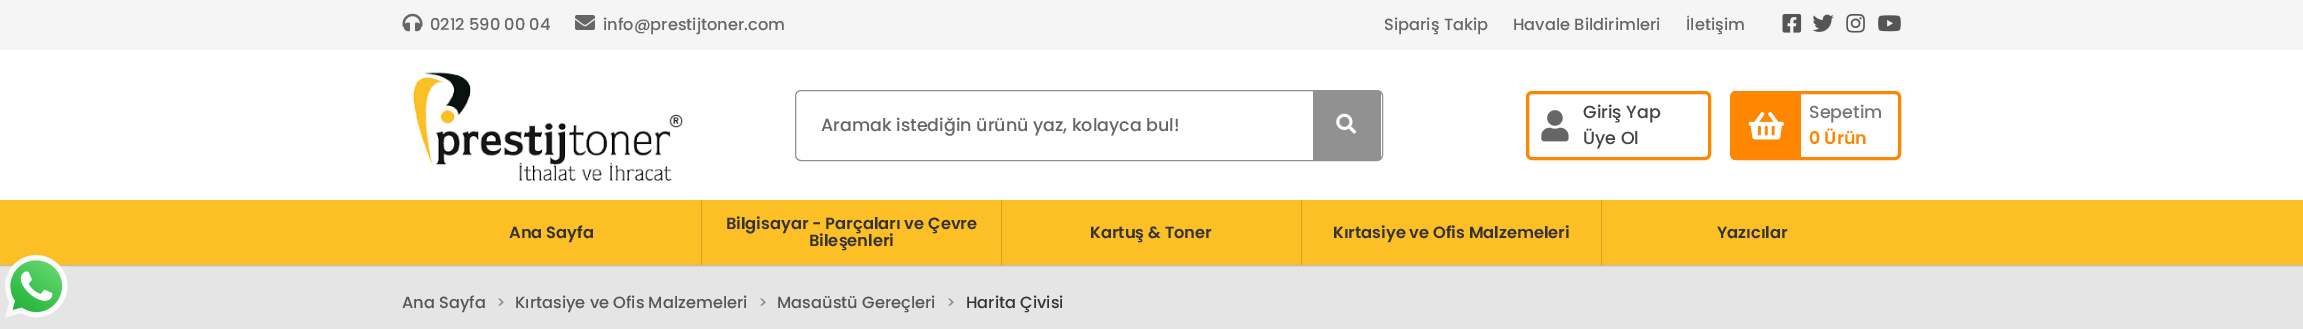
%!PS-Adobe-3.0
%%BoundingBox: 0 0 2303 329
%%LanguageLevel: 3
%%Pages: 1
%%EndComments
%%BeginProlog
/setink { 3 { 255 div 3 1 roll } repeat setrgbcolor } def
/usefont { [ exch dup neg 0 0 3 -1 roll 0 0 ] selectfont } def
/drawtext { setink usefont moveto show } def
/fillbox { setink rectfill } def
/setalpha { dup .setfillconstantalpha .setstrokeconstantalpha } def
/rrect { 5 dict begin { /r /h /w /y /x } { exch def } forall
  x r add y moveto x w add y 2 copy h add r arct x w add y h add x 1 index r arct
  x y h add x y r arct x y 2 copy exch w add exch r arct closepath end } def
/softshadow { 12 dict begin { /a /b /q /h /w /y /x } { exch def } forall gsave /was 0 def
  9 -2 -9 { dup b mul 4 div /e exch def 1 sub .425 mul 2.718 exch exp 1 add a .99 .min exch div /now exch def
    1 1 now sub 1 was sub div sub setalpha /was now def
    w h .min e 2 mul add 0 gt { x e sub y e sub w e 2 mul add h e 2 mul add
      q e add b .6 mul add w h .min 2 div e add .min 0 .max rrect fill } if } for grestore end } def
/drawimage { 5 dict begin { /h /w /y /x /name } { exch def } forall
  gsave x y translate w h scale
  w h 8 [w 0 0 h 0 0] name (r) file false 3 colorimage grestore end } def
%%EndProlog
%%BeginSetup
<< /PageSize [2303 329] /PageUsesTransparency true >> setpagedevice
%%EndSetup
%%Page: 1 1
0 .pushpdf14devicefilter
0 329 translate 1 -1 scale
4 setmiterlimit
0 0 2303 329 229 229 229 fillbox
0 50 2303 150 255 255 255 fillbox
0 0 2303 50 245 245 245 fillbox
(assets/img1.rgb) 402 13 21 19 drawimage
(0212 590 00 04) 430 30 /Poppins-Medium 16.25 102 102 102 drawtext
(assets/img2.rgb) 575 15 20 15 drawimage
(info@prestijtoner.com) 603 30 /Poppins-Medium 16.25 102 102 102 drawtext
(Sipariş Takip) 1384 30 /Poppins-Medium 16.25 102 102 102 drawtext
(Havale Bildirimleri) 1513 30 /Poppins-Medium 16.25 102 102 102 drawtext
(İletişim) 1686 30 /Poppins-Medium 16.25 102 102 102 drawtext
(assets/img3.rgb) 1782 14 20 19 drawimage
(assets/img4.rgb) 1812 14 22 18 drawimage
(assets/img5.rgb) 1846 14 19 19 drawimage
(assets/img6.rgb) 1878 15 23 17 drawimage
(assets/img7.rgb) 413 72 270 109 drawimage
145 145 145 setink
795.5 90.5 587 70 5.5 rrect stroke
(Aramak istediğin ürünü yaz, kolayca bul!) 821 131 /Poppins-Medium 17.5 102 102 102 drawtext
1313 91 68 69 145 145 145 fillbox
(assets/img8.rgb) 1336 113 21 21 drawimage
255 134 0 setink
3 setlinewidth
1527.5 92.5 182 66 4.5 rrect stroke
(assets/img9.rgb) 1541 110 28 32 drawimage
(Giriş Yap) 1583 118 /Poppins-Medium 17.5 68 68 68 drawtext
(Üye Ol) 1583 144 /Poppins-Medium 17.5 68 68 68 drawtext
255 134 0 setink
1731.5 92.5 168 66 4.5 rrect stroke
1733 91 68 69 255 134 0 fillbox
(assets/img10.rgb) 1748 112 36 28 drawimage
(Sepetim) 1809 118 /Poppins-Medium 17.5 119 119 119 drawtext
(0 Ürün) 1809 144 /Poppins-SemiBold 17.5 255 134 0 drawtext
0 0 0 setink
0 201 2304 65 0 0.5 0.2 softshadow
0 200 2303 65 252 191 38 fillbox
701 200 1 65 214 162 32 fillbox
(Ana Sayfa) 509 238 /Poppins-SemiBold 16.25 51 51 51 drawtext
1001 200 1 65 214 162 32 fillbox
(Bilgisayar - Parçaları ve Çevre) 726 229 /Poppins-SemiBold 16.25 51 51 51 drawtext
(Bileşenleri) 809 246 /Poppins-SemiBold 16.25 51 51 51 drawtext
1301 200 1 65 214 162 32 fillbox
(Kartuş & Toner) 1090 238 /Poppins-SemiBold 16.25 51 51 51 drawtext
1601 200 1 65 214 162 32 fillbox
(Kırtasiye ve Ofis Malzemeleri) 1333 238 /Poppins-SemiBold 16.25 51 51 51 drawtext
(Yazıcılar) 1717 238 /Poppins-SemiBold 16.25 51 51 51 drawtext
(assets/img11.rgb) 5 255 63 63 drawimage
(Ana Sayfa) 402 308 /Poppins-Medium 16.25 85 85 85 drawtext
(>) 496 308 /Poppins-Medium 16.25 142 142 142 drawtext
(Kırtasiye ve Ofis Malzemeleri) 515 308 /Poppins-Medium 16.25 85 85 85 drawtext
(>) 758 308 /Poppins-Medium 16.25 142 142 142 drawtext
(Masaüstü Gereçleri) 777 308 /Poppins-Medium 16.25 85 85 85 drawtext
(>) 946 308 /Poppins-Medium 16.25 142 142 142 drawtext
(Harita Çivisi) 966 308 /Poppins-Medium 16.25 51 51 51 drawtext
.poppdf14devicefilter showpage
%%EOF
